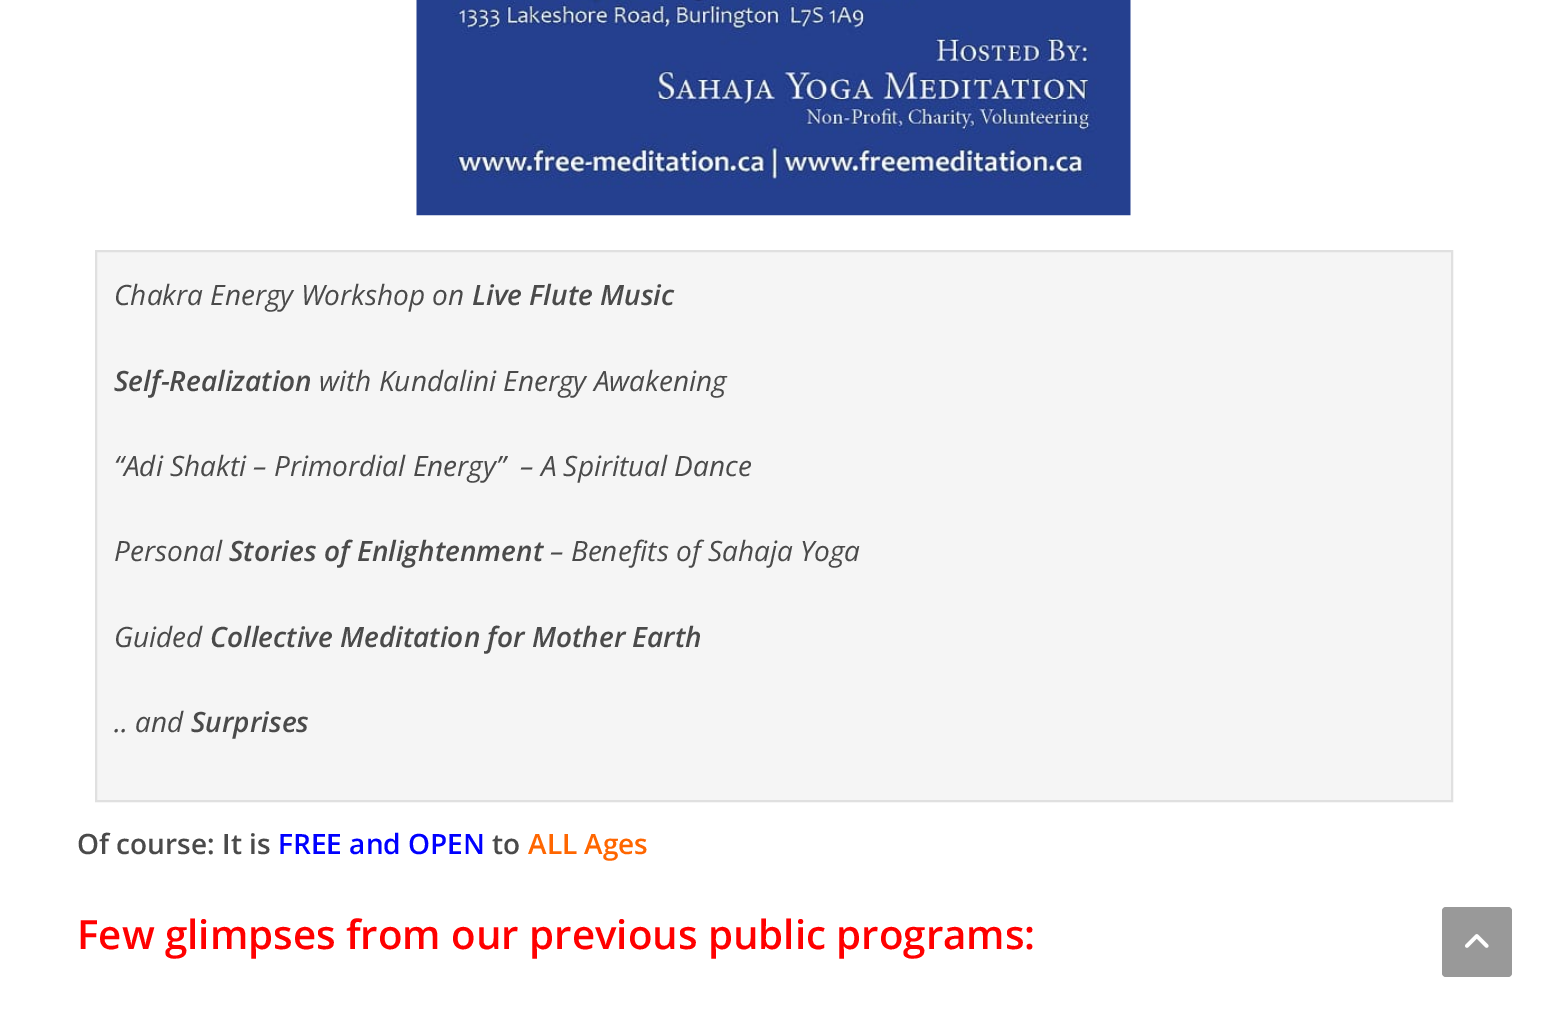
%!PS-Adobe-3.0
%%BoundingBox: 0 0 1546 1011
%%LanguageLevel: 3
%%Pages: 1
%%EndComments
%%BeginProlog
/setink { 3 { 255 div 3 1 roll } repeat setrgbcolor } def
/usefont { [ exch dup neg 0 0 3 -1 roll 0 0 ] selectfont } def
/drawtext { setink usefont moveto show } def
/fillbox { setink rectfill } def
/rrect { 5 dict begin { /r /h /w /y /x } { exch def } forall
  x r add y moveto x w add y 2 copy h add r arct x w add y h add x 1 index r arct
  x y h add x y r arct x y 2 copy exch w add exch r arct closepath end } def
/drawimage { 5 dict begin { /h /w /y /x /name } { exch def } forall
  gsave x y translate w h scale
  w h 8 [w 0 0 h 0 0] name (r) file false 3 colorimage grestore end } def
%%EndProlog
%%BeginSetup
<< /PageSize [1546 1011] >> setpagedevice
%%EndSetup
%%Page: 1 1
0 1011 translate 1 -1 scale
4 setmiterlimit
0 0 1546 1011 255 255 255 fillbox
(assets/img1.rgb) 416 0 715 216 drawimage
245 245 245 setink
96 251 moveto 1452 251 lineto 1452 801 lineto 96 801 lineto closepath gsave fill grestore
224 224 224 setink
2 setlinewidth
stroke
(Chakra Energy Workshop on) 114 305 /OpenSans-Italic 28 74 74 74 drawtext
(Live Flute Music) 472 305 /OpenSans-SemiBoldItalic 28 74 74 74 drawtext
(Self-Realization) 114 391 /OpenSans-SemiBoldItalic 28 74 74 74 drawtext
(with Kundalini Energy Awakening) 319 391 /OpenSans-Italic 28 74 74 74 drawtext
(“Adi Shakti – Primordial Energy”  – A Spiritual Dance) 114 476 /OpenSans-Italic 28 74 74 74 drawtext
(Personal) 114 561 /OpenSans-Italic 28 74 74 74 drawtext
(Stories of Enlightenment) 229 561 /OpenSans-SemiBoldItalic 28 74 74 74 drawtext
(– Benefits of Sahaja Yoga) 550 561 /OpenSans-Italic 28 74 74 74 drawtext
(Guided) 114 647 /OpenSans-Italic 28 74 74 74 drawtext
(Collective Meditation for Mother Earth) 210 647 /OpenSans-SemiBoldItalic 28 74 74 74 drawtext
(.. and) 114 732 /OpenSans-Italic 28 74 74 74 drawtext
(Surprises) 191 732 /OpenSans-SemiBoldItalic 28 74 74 74 drawtext
(Of course: It is) 77 854 /OpenSans-SemiBold 28 74 74 74 drawtext
(FREE and OPEN) 278 854 /OpenSans-SemiBold 28 0 0 255 drawtext
(to) 492 854 /OpenSans-SemiBold 28 74 74 74 drawtext
(ALL Ages) 528 854 /OpenSans-SemiBold 28 255 102 0 drawtext
(Few glimpses from our previous public programs:) 77 949 /OpenSans-SemiBold 40.25 255 0 0 drawtext
153 153 153 setink
1442 907 70 70 4 rrect fill
(assets/img2.rgb) 1465 934 24 14 drawimage
showpage
%%EOF
